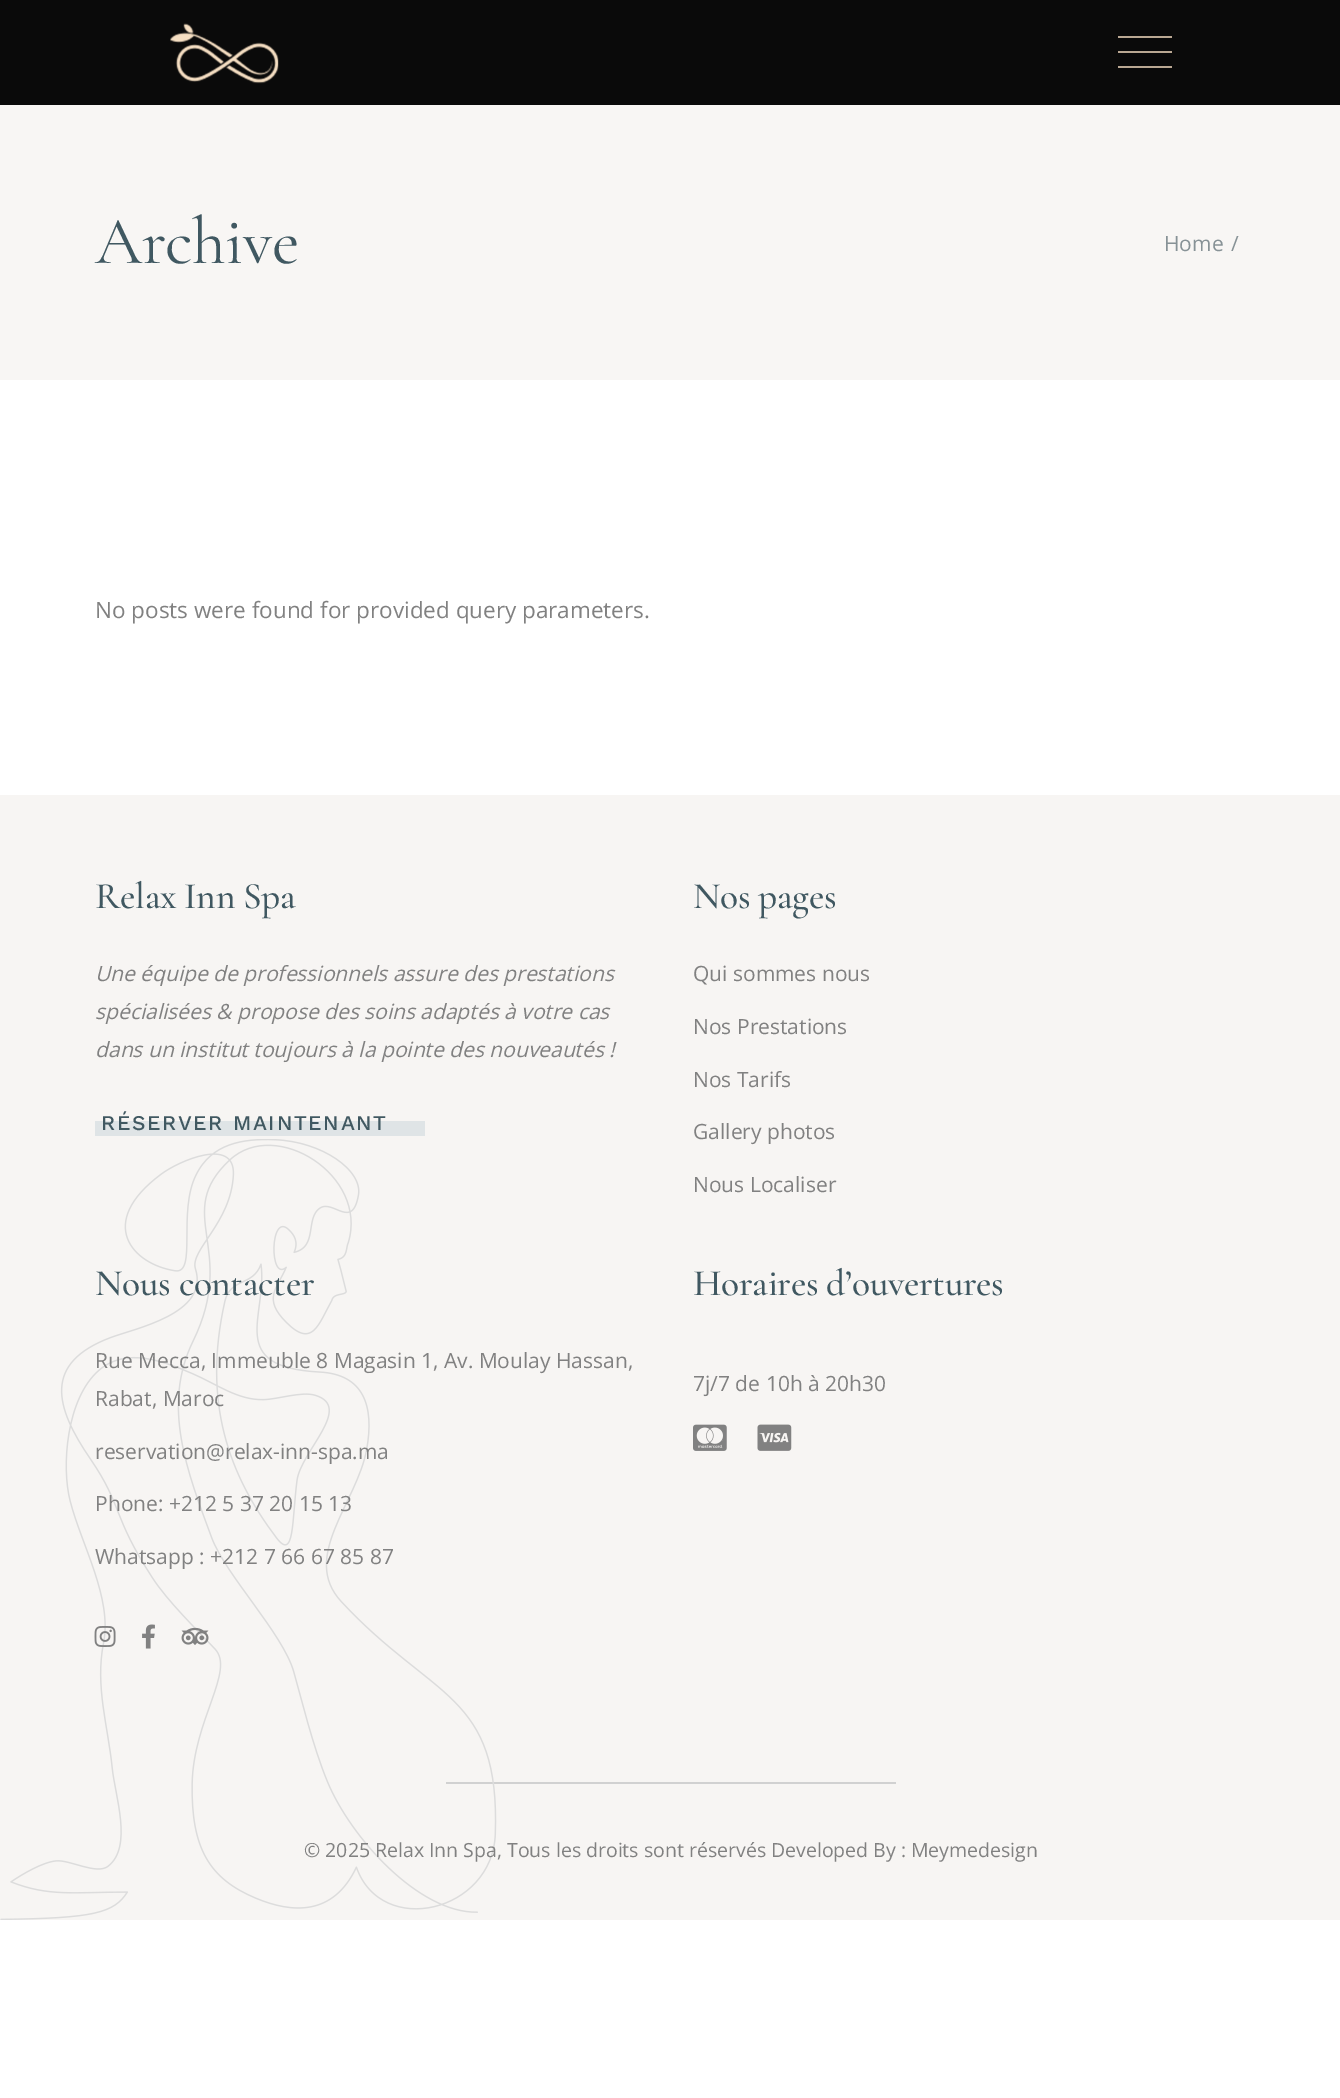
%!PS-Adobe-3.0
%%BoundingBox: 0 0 1340 2098
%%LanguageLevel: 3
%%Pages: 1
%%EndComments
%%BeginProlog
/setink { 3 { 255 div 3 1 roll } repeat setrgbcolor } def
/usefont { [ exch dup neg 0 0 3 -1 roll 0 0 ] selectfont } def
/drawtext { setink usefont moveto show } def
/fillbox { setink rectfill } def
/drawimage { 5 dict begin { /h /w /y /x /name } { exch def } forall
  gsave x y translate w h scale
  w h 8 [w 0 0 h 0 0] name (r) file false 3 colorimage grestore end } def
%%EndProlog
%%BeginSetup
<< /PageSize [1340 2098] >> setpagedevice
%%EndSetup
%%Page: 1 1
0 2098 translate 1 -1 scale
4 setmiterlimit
0 0 1340 2098 255 255 255 fillbox
0 0 1340 105 10 10 10 fillbox
(assets/img1.rgb) 170 23 109 61 drawimage
1118 36 54 2 186 168 147 fillbox
1118 51 54 2 186 168 147 fillbox
1118 66 54 2 186 168 147 fillbox
0 105 1340 275 248 246 244 fillbox
/CormorantGaramond-Regular 67.5 usefont
64 88 97 setink
95 263 moveto -0.75 0 (Archive) ashow
(Home) 1164 251 /OpenSans-Regular 21 135 146 150 drawtext
(/) 1231 251 /OpenSans-Regular 21 135 146 150 drawtext
(No posts were found for provided query parameters.) 95 618 /OpenSans-Regular 22.5 129 129 129 drawtext
0 795 1340 1125 247 245 243 fillbox
/CormorantGaramond-Medium 37.5 usefont
64 88 97 setink
95 908 moveto -0.4 0 (Relax Inn Spa) ashow
(Une équipe de professionnels assure des prestations) 95 981 /OpenSans-Italic 21 129 129 129 drawtext
(spécialisées & propose des soins adaptés à votre cas) 95 1019 /OpenSans-Italic 21 129 129 129 drawtext
(dans un institut toujours à la pointe des nouveautés !) 95 1057 /OpenSans-Italic 21 129 129 129 drawtext
95 1121 330 15 223 228 230 fillbox
/WorkSans-Medium 21 usefont
64 88 97 setink
101 1130 moveto 1.7 0 (RÉSERVER MAINTENANT) ashow
/CormorantGaramond-Medium 37.5 usefont
693 908 moveto -0.4 0 (Nos pages) ashow
(Qui sommes nous) 693 981 /OpenSans-Regular 21 129 129 129 drawtext
(Nos Prestations) 693 1034 /OpenSans-Regular 21 129 129 129 drawtext
(Nos Tarifs) 693 1087 /OpenSans-Regular 21 129 129 129 drawtext
(Gallery photos) 693 1139 /OpenSans-Regular 21 129 129 129 drawtext
(Nous Localiser) 693 1192 /OpenSans-Regular 21 129 129 129 drawtext
446 1782 450 2 209 209 209 fillbox
(assets/img7.rgb) 0 1139 497 781 drawimage
/CormorantGaramond-Medium 37.5 usefont
64 88 97 setink
95 1295 moveto -0.4 0 (Nous contacter) ashow
(Rue Mecca, Immeuble 8 Magasin 1, Av. Moulay Hassan,) 95 1368 /OpenSans-Regular 21 129 129 129 drawtext
(Rabat, Maroc) 95 1406 /OpenSans-Regular 21 129 129 129 drawtext
(reservation@relax-inn-spa.ma) 95 1459 /OpenSans-Regular 21 129 129 129 drawtext
(Phone: +212 5 37 20 15 13) 95 1511 /OpenSans-Regular 21 129 129 129 drawtext
(Whatsapp : +212 7 66 67 85 87) 95 1564 /OpenSans-Regular 21 129 129 129 drawtext
(assets/img2.rgb) 94 1626 22 21 drawimage
(assets/img3.rgb) 142 1624 13 25 drawimage
(assets/img4.rgb) 181 1627 28 18 drawimage
/CormorantGaramond-Medium 37.5 usefont
64 88 97 setink
693 1295 moveto -0.4 0 (Horaires d’ouvertures) ashow
(7j/7 de 10h à 20h30) 693 1391 /OpenSans-Regular 21 129 129 129 drawtext
(assets/img5.rgb) 693 1424 34 27 drawimage
(assets/img6.rgb) 757 1424 35 27 drawimage
(© 2025 Relax Inn Spa, Tous les droits sont réservés Developed By : Meymedesign) 304 1857 /OpenSans-Regular 19.5 129 129 129 drawtext
showpage
%%EOF
